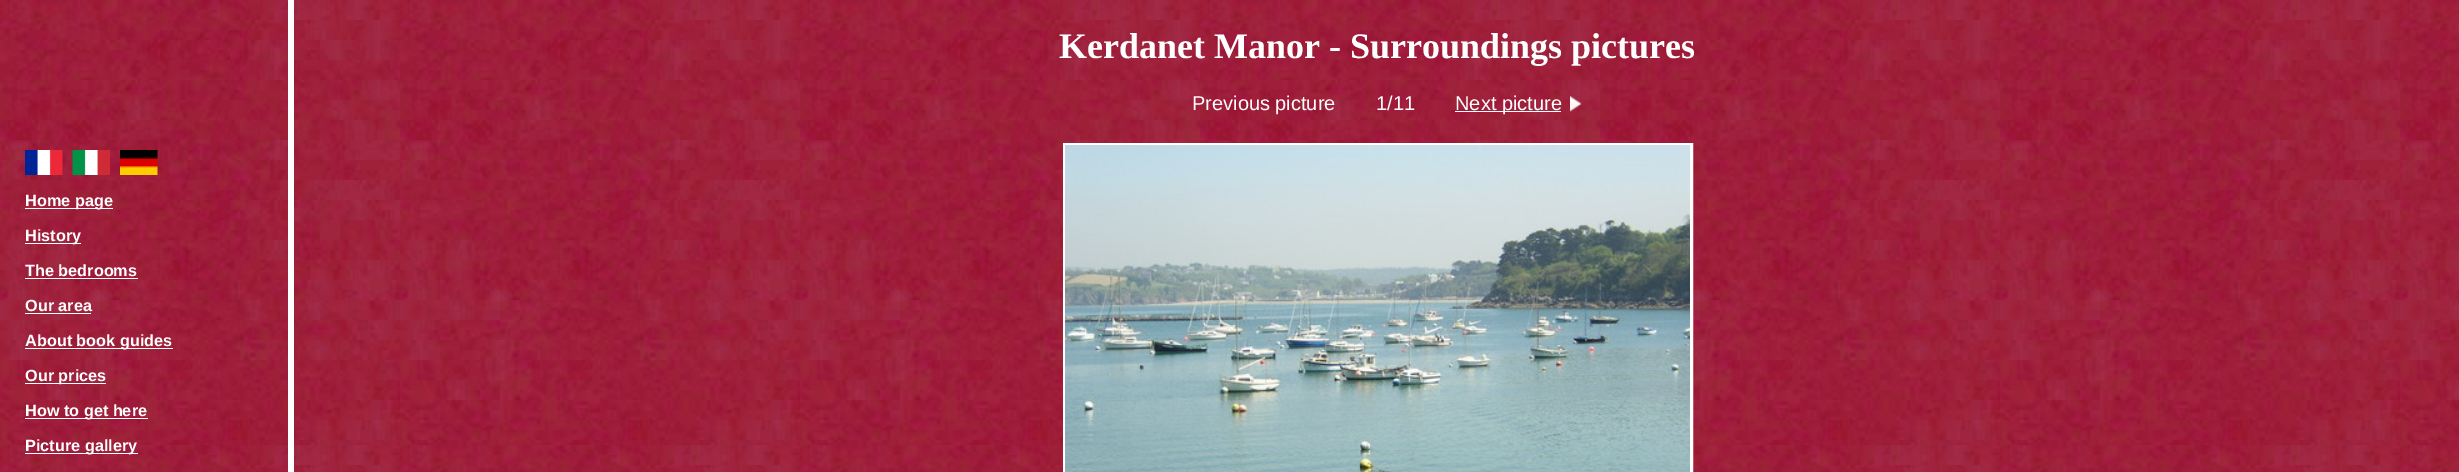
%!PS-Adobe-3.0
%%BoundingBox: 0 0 2459 472
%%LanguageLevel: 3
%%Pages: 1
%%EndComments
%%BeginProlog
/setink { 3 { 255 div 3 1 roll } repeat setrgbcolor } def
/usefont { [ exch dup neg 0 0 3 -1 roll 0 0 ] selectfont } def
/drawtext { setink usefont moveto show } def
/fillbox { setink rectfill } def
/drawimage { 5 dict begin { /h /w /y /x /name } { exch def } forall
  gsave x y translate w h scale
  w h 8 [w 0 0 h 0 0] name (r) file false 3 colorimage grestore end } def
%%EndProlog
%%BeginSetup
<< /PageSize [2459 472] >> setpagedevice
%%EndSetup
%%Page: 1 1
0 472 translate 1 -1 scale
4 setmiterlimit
0 0 2459 472 255 255 255 fillbox
(assets/img1.rgb) 0 0 2459 472 drawimage
288 0 6 472 255 255 255 fillbox
(Kerdanet Manor - Surroundings pictures) 1059 58 /LiberationSerif-Bold 36 255 255 255 drawtext
(Previous picture) 1192 110 /LiberationSans-Regular 20 255 255 255 drawtext
(1/11) 1376 110 /LiberationSans-Regular 20 255 255 255 drawtext
1455 111 106 1 255 255 255 fillbox
(Next picture) 1455 110 /LiberationSans-Regular 20 255 255 255 drawtext
(assets/img2.rgb) 1570 96 12 16 drawimage
3 setlinewidth
1064.5 144.5 627 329 rectstroke
(assets/img3.rgb) 1065 145 625 327 drawimage
(assets/img4.rgb) 25 150 38 25 drawimage
(assets/img5.rgb) 72 150 38 25 drawimage
(assets/img6.rgb) 120 150 38 25 drawimage
25 208 88 1 255 255 255 fillbox
(Home page) 25 206 /LiberationSans-Bold 16.25 255 255 255 drawtext
25 243 56 1 255 255 255 fillbox
(History) 25 241 /LiberationSans-Bold 16.25 255 255 255 drawtext
(The bedrooms) 25 276 /LiberationSans-Bold 16.25 255 255 255 drawtext
25 278 113 1 255 255 255 fillbox
(Our area) 25 311 /LiberationSans-Bold 16.25 255 255 255 drawtext
25 313 66 1 255 255 255 fillbox
25 348 148 1 255 255 255 fillbox
(About book guides) 25 346 /LiberationSans-Bold 16.25 255 255 255 drawtext
25 383 81 1 255 255 255 fillbox
(Our prices) 25 381 /LiberationSans-Bold 16.25 255 255 255 drawtext
25 418 123 1 255 255 255 fillbox
(How to get here) 25 416 /LiberationSans-Bold 16.25 255 255 255 drawtext
25 453 113 1 255 255 255 fillbox
(Picture gallery) 25 451 /LiberationSans-Bold 16.25 255 255 255 drawtext
showpage
%%EOF
